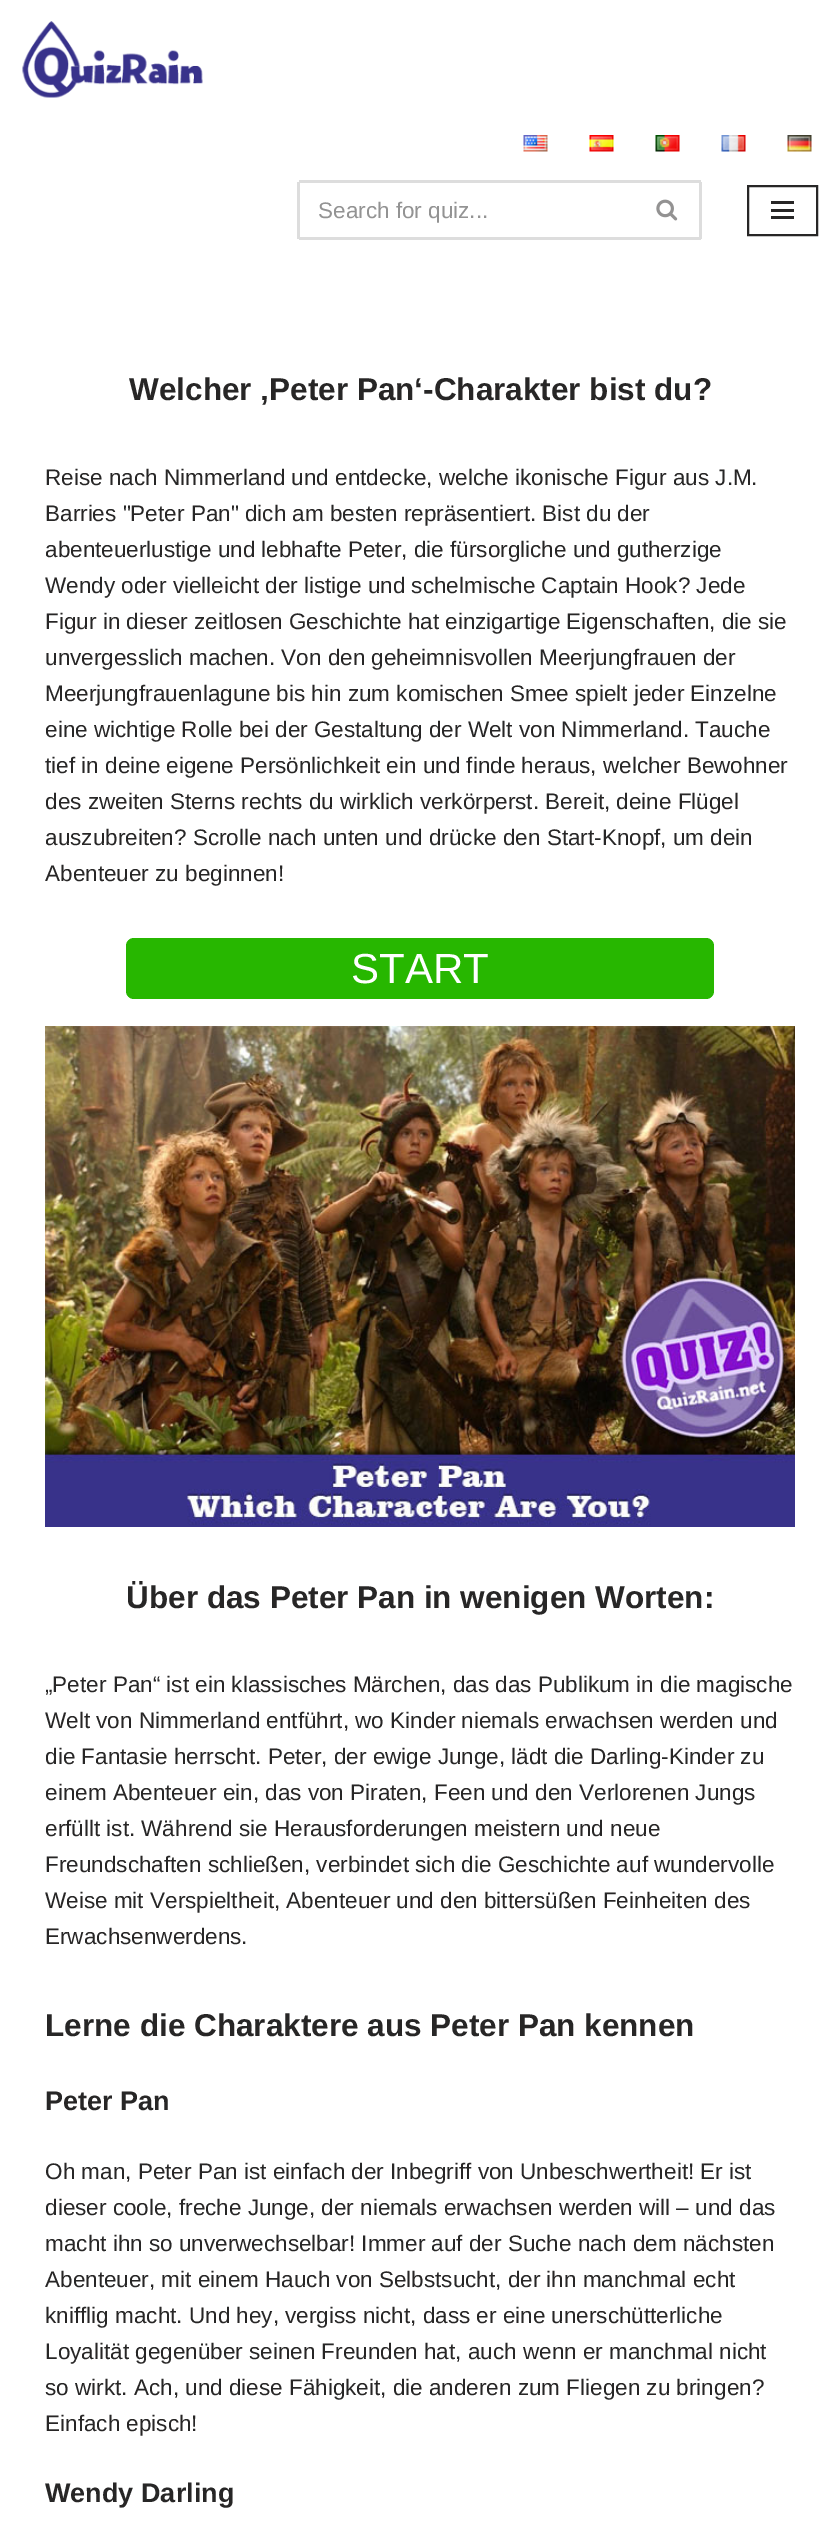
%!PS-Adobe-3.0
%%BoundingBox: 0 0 840 2540
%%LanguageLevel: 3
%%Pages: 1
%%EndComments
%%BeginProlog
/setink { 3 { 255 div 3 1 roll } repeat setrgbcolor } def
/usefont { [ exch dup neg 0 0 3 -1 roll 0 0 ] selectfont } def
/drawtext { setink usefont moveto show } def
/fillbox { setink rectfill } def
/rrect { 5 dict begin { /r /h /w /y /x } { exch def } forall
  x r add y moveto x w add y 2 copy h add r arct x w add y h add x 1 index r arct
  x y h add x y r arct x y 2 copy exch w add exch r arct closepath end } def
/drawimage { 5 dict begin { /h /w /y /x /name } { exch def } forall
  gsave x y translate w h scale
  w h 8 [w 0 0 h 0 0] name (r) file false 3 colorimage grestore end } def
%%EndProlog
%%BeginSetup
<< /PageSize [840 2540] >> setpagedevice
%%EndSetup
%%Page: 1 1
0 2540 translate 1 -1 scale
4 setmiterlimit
0 0 840 2540 255 255 255 fillbox
(assets/img1.rgb) 22 21 181 77 drawimage
(assets/img2.rgb) 523 135 25 17 drawimage
(assets/img3.rgb) 589 135 25 17 drawimage
(assets/img4.rgb) 655 135 25 17 drawimage
(assets/img5.rgb) 721 135 25 17 drawimage
(assets/img6.rgb) 787 135 25 17 drawimage
299 180 402 3 221 221 221 fillbox
299 237 336 3 221 221 221 fillbox
297 182 3 57 221 221 221 fillbox
(Search for quiz...) 318 218 /LiberationSans-Regular 22.5 147 147 147 drawtext
699 182 3 57 221 221 221 fillbox
635 237 66 3 221 221 221 fillbox
(assets/img7.rgb) 656 199 22 22 drawimage
39 38 38 setink
2 setlinewidth
748 186 69 49 rectstroke
771 201 23 3 39 38 38 fillbox
771 209 23 3 39 38 38 fillbox
771 216 23 3 39 38 38 fillbox
(Welcher ‚Peter Pan‘-Charakter bist du?) 129 400 /LiberationSans-Bold 31.5 39 38 38 drawtext
(Reise nach Nimmerland und entdecke, welche ikonische Figur aus J.M.) 45 485 /LiberationSans-Regular 22.5 39 38 38 drawtext
(Barries "Peter Pan" dich am besten repräsentiert. Bist du der) 45 521 /LiberationSans-Regular 22.5 39 38 38 drawtext
(abenteuerlustige und lebhafte Peter, die fürsorgliche und gutherzige) 45 557 /LiberationSans-Regular 22.5 39 38 38 drawtext
(Wendy oder vielleicht der listige und schelmische Captain Hook? Jede) 45 593 /LiberationSans-Regular 22.5 39 38 38 drawtext
(Figur in dieser zeitlosen Geschichte hat einzigartige Eigenschaften, die sie) 45 629 /LiberationSans-Regular 22.5 39 38 38 drawtext
(unvergesslich machen. Von den geheimnisvollen Meerjungfrauen der) 45 665 /LiberationSans-Regular 22.5 39 38 38 drawtext
(Meerjungfrauenlagune bis hin zum komischen Smee spielt jeder Einzelne) 45 701 /LiberationSans-Regular 22.5 39 38 38 drawtext
(eine wichtige Rolle bei der Gestaltung der Welt von Nimmerland. Tauche) 45 737 /LiberationSans-Regular 22.5 39 38 38 drawtext
(tief in deine eigene Persönlichkeit ein und finde heraus, welcher Bewohner) 45 773 /LiberationSans-Regular 22.5 39 38 38 drawtext
(des zweiten Sterns rechts du wirklich verkörperst. Bereit, deine Flügel) 45 809 /LiberationSans-Regular 22.5 39 38 38 drawtext
(auszubreiten? Scrolle nach unten und drücke den Start-Knopf, um dein) 45 845 /LiberationSans-Regular 22.5 39 38 38 drawtext
(Abenteuer zu beginnen!) 45 881 /LiberationSans-Regular 22.5 39 38 38 drawtext
39 183 0 setink
126 938 588 61 8 rrect fill
(START) 351 983 /LiberationSans-Regular 42 255 255 255 drawtext
(assets/img8.rgb) 45 1026 750 501 drawimage
(Über das Peter Pan in wenigen Worten:) 126 1608 /LiberationSans-Bold 31.5 39 38 38 drawtext
(„Peter Pan“ ist ein klassisches Märchen, das das Publikum in die magische) 45 1692 /LiberationSans-Regular 22.5 39 38 38 drawtext
(Welt von Nimmerland entführt, wo Kinder niemals erwachsen werden und) 45 1728 /LiberationSans-Regular 22.5 39 38 38 drawtext
(die Fantasie herrscht. Peter, der ewige Junge, lädt die Darling-Kinder zu) 45 1764 /LiberationSans-Regular 22.5 39 38 38 drawtext
(einem Abenteuer ein, das von Piraten, Feen und den Verlorenen Jungs) 45 1800 /LiberationSans-Regular 22.5 39 38 38 drawtext
(erfüllt ist. Während sie Herausforderungen meistern und neue) 45 1836 /LiberationSans-Regular 22.5 39 38 38 drawtext
(Freundschaften schließen, verbindet sich die Geschichte auf wundervolle) 45 1872 /LiberationSans-Regular 22.5 39 38 38 drawtext
(Weise mit Verspieltheit, Abenteuer und den bittersüßen Feinheiten des) 45 1908 /LiberationSans-Regular 22.5 39 38 38 drawtext
(Erwachsenwerdens.) 45 1944 /LiberationSans-Regular 22.5 39 38 38 drawtext
(Lerne die Charaktere aus Peter Pan kennen) 45 2036 /LiberationSans-Bold 31.5 39 38 38 drawtext
(Peter Pan) 45 2110 /LiberationSans-Bold 27 39 38 38 drawtext
(Oh man, Peter Pan ist einfach der Inbegriff von Unbeschwertheit! Er ist) 45 2179 /LiberationSans-Regular 22.5 39 38 38 drawtext
(dieser coole, freche Junge, der niemals erwachsen werden will – und das) 45 2215 /LiberationSans-Regular 22.5 39 38 38 drawtext
(macht ihn so unverwechselbar! Immer auf der Suche nach dem nächsten) 45 2251 /LiberationSans-Regular 22.5 39 38 38 drawtext
(Abenteuer, mit einem Hauch von Selbstsucht, der ihn manchmal echt) 45 2287 /LiberationSans-Regular 22.5 39 38 38 drawtext
(knifflig macht. Und hey, vergiss nicht, dass er eine unerschütterliche) 45 2323 /LiberationSans-Regular 22.5 39 38 38 drawtext
(Loyalität gegenüber seinen Freunden hat, auch wenn er manchmal nicht) 45 2359 /LiberationSans-Regular 22.5 39 38 38 drawtext
(so wirkt. Ach, und diese Fähigkeit, die anderen zum Fliegen zu bringen?) 45 2395 /LiberationSans-Regular 22.5 39 38 38 drawtext
(Einfach episch!) 45 2431 /LiberationSans-Regular 22.5 39 38 38 drawtext
(Wendy Darling) 45 2502 /LiberationSans-Bold 27 39 38 38 drawtext
showpage
%%EOF
